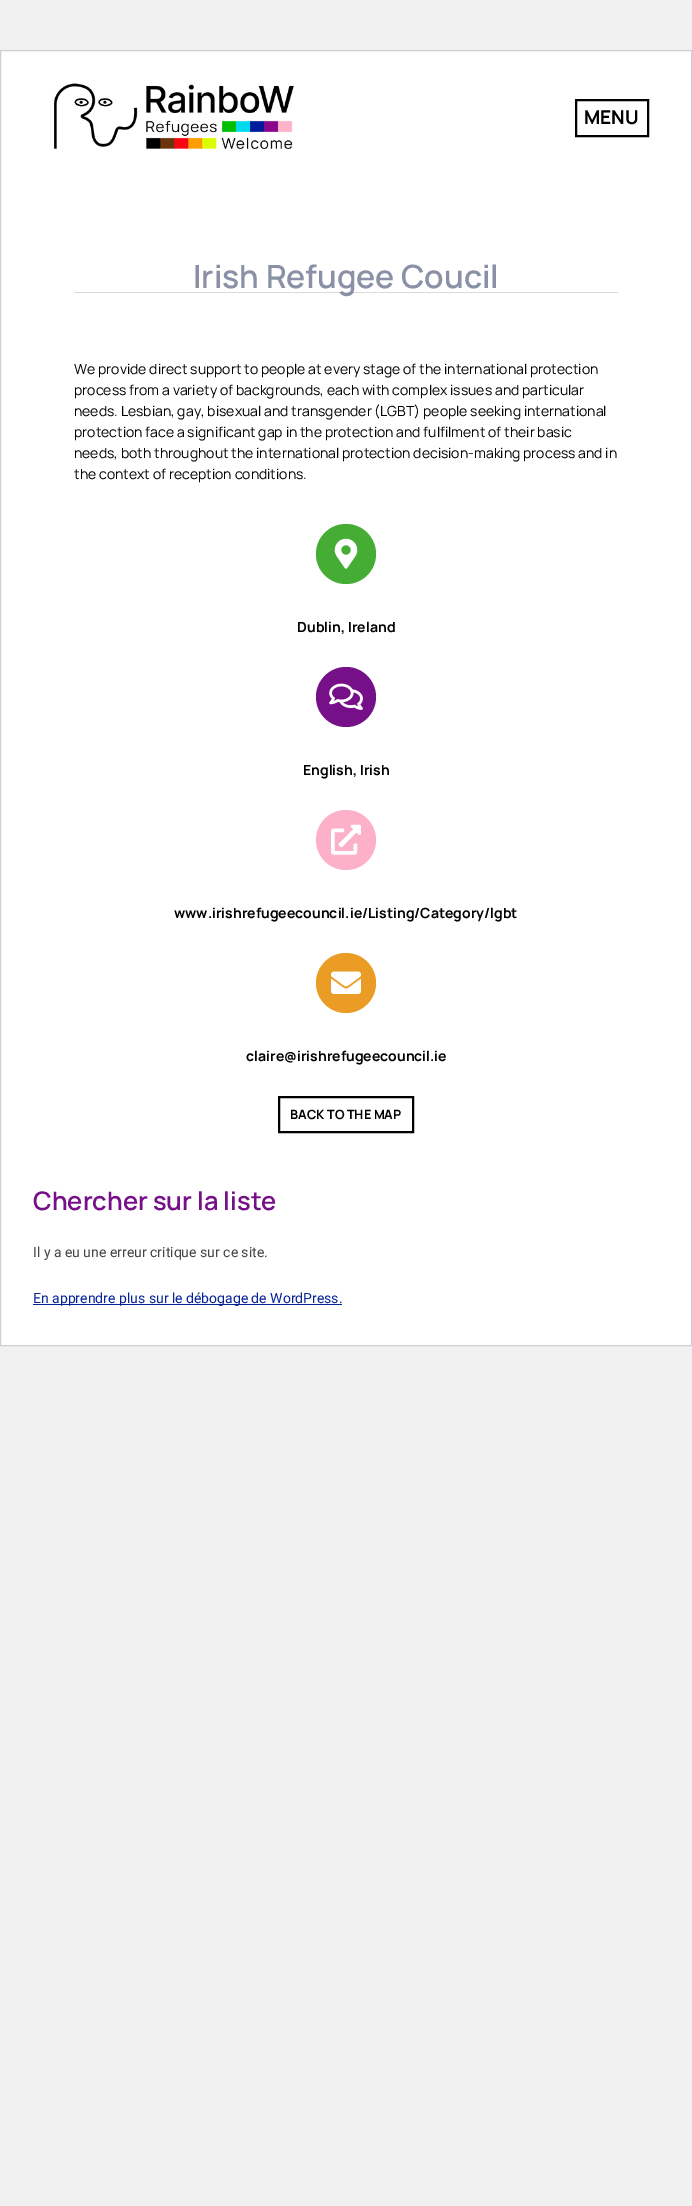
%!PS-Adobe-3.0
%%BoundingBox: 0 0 692 2206
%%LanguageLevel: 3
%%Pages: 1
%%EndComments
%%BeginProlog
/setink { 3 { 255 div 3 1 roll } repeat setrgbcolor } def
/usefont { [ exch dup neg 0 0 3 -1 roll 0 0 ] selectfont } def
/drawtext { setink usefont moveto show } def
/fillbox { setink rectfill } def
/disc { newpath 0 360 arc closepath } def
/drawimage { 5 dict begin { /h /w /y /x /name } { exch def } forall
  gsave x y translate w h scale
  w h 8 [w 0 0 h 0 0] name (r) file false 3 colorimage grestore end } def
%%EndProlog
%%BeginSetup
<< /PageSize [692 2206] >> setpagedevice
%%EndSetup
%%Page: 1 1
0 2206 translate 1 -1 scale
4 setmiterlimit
0 0 692 2206 241 241 241 fillbox
255 255 255 setink
0.5 50.5 moveto 691.5 50.5 lineto 691.5 1345.5 lineto 0.5 1345.5 lineto closepath gsave fill grestore
204 208 212 setink
stroke
(assets/img1.rgb) 54 83 240 66 drawimage
0 0 0 setink
2 setlinewidth
576 100 72 36 rectstroke
(MENU) 584 124 /Manrope-Bold 19 0 0 0 drawtext
74 292 544 1 218 218 218 fillbox
(Irish Refugee Coucil) 193 288 /Manrope-SemiBold 32 138 145 167 drawtext
(We provide direct support to people at every stage of the international protection) 74 374 /Manrope-Regular 14 0 0 0 drawtext
(process from a variety of backgrounds, each with complex issues and particular) 74 395 /Manrope-Regular 14 0 0 0 drawtext
(needs. Lesbian, gay, bisexual and transgender \(LGBT\) people seeking international) 74 416 /Manrope-Regular 14 0 0 0 drawtext
(protection face a significant gap in the protection and fulfilment of their basic) 74 437 /Manrope-Regular 14 0 0 0 drawtext
(needs, both throughout the international protection decision-making process and in) 74 458 /Manrope-Regular 14 0 0 0 drawtext
(the context of reception conditions.) 74 479 /Manrope-Regular 14 0 0 0 drawtext
69 172 52 setink
346 554 30 disc fill
(assets/img2.rgb) 334 538 24 31 drawimage
(Dublin, Ireland) 297 632 /Manrope-Bold 14 0 0 0 drawtext
117 16 136 setink
346 697 30 disc fill
(assets/img3.rgb) 329 683 34 27 drawimage
(English, Irish) 303 775 /Manrope-Bold 14 0 0 0 drawtext
253 177 200 setink
346 840 30 disc fill
(assets/img4.rgb) 331 824 30 31 drawimage
(www.irishrefugeecouncil.ie/Listing/Category/lgbt) 174 918 /Manrope-Bold 14 0 0 0 drawtext
235 156 36 setink
346 983 30 disc fill
(assets/img5.rgb) 331 971 30 23 drawimage
(claire@irishrefugeecouncil.ie) 246 1061 /Manrope-Bold 14 0 0 0 drawtext
279 1097 134 35 rectstroke
(BACK TO THE MAP) 290 1119 /Manrope-Bold 12.75 0 0 0 drawtext
(Chercher sur la liste) 33 1210 /Manrope-SemiBold 25.5 117 16 136 drawtext
(Il y a eu une erreur critique sur ce site.) 33 1257 /Roboto-Regular 14 68 68 68 drawtext
33 1304 309 1 6 34 150 fillbox
(En apprendre plus sur le débogage de WordPress.) 33 1303 /Roboto-Regular 14 6 34 150 drawtext
showpage
%%EOF
